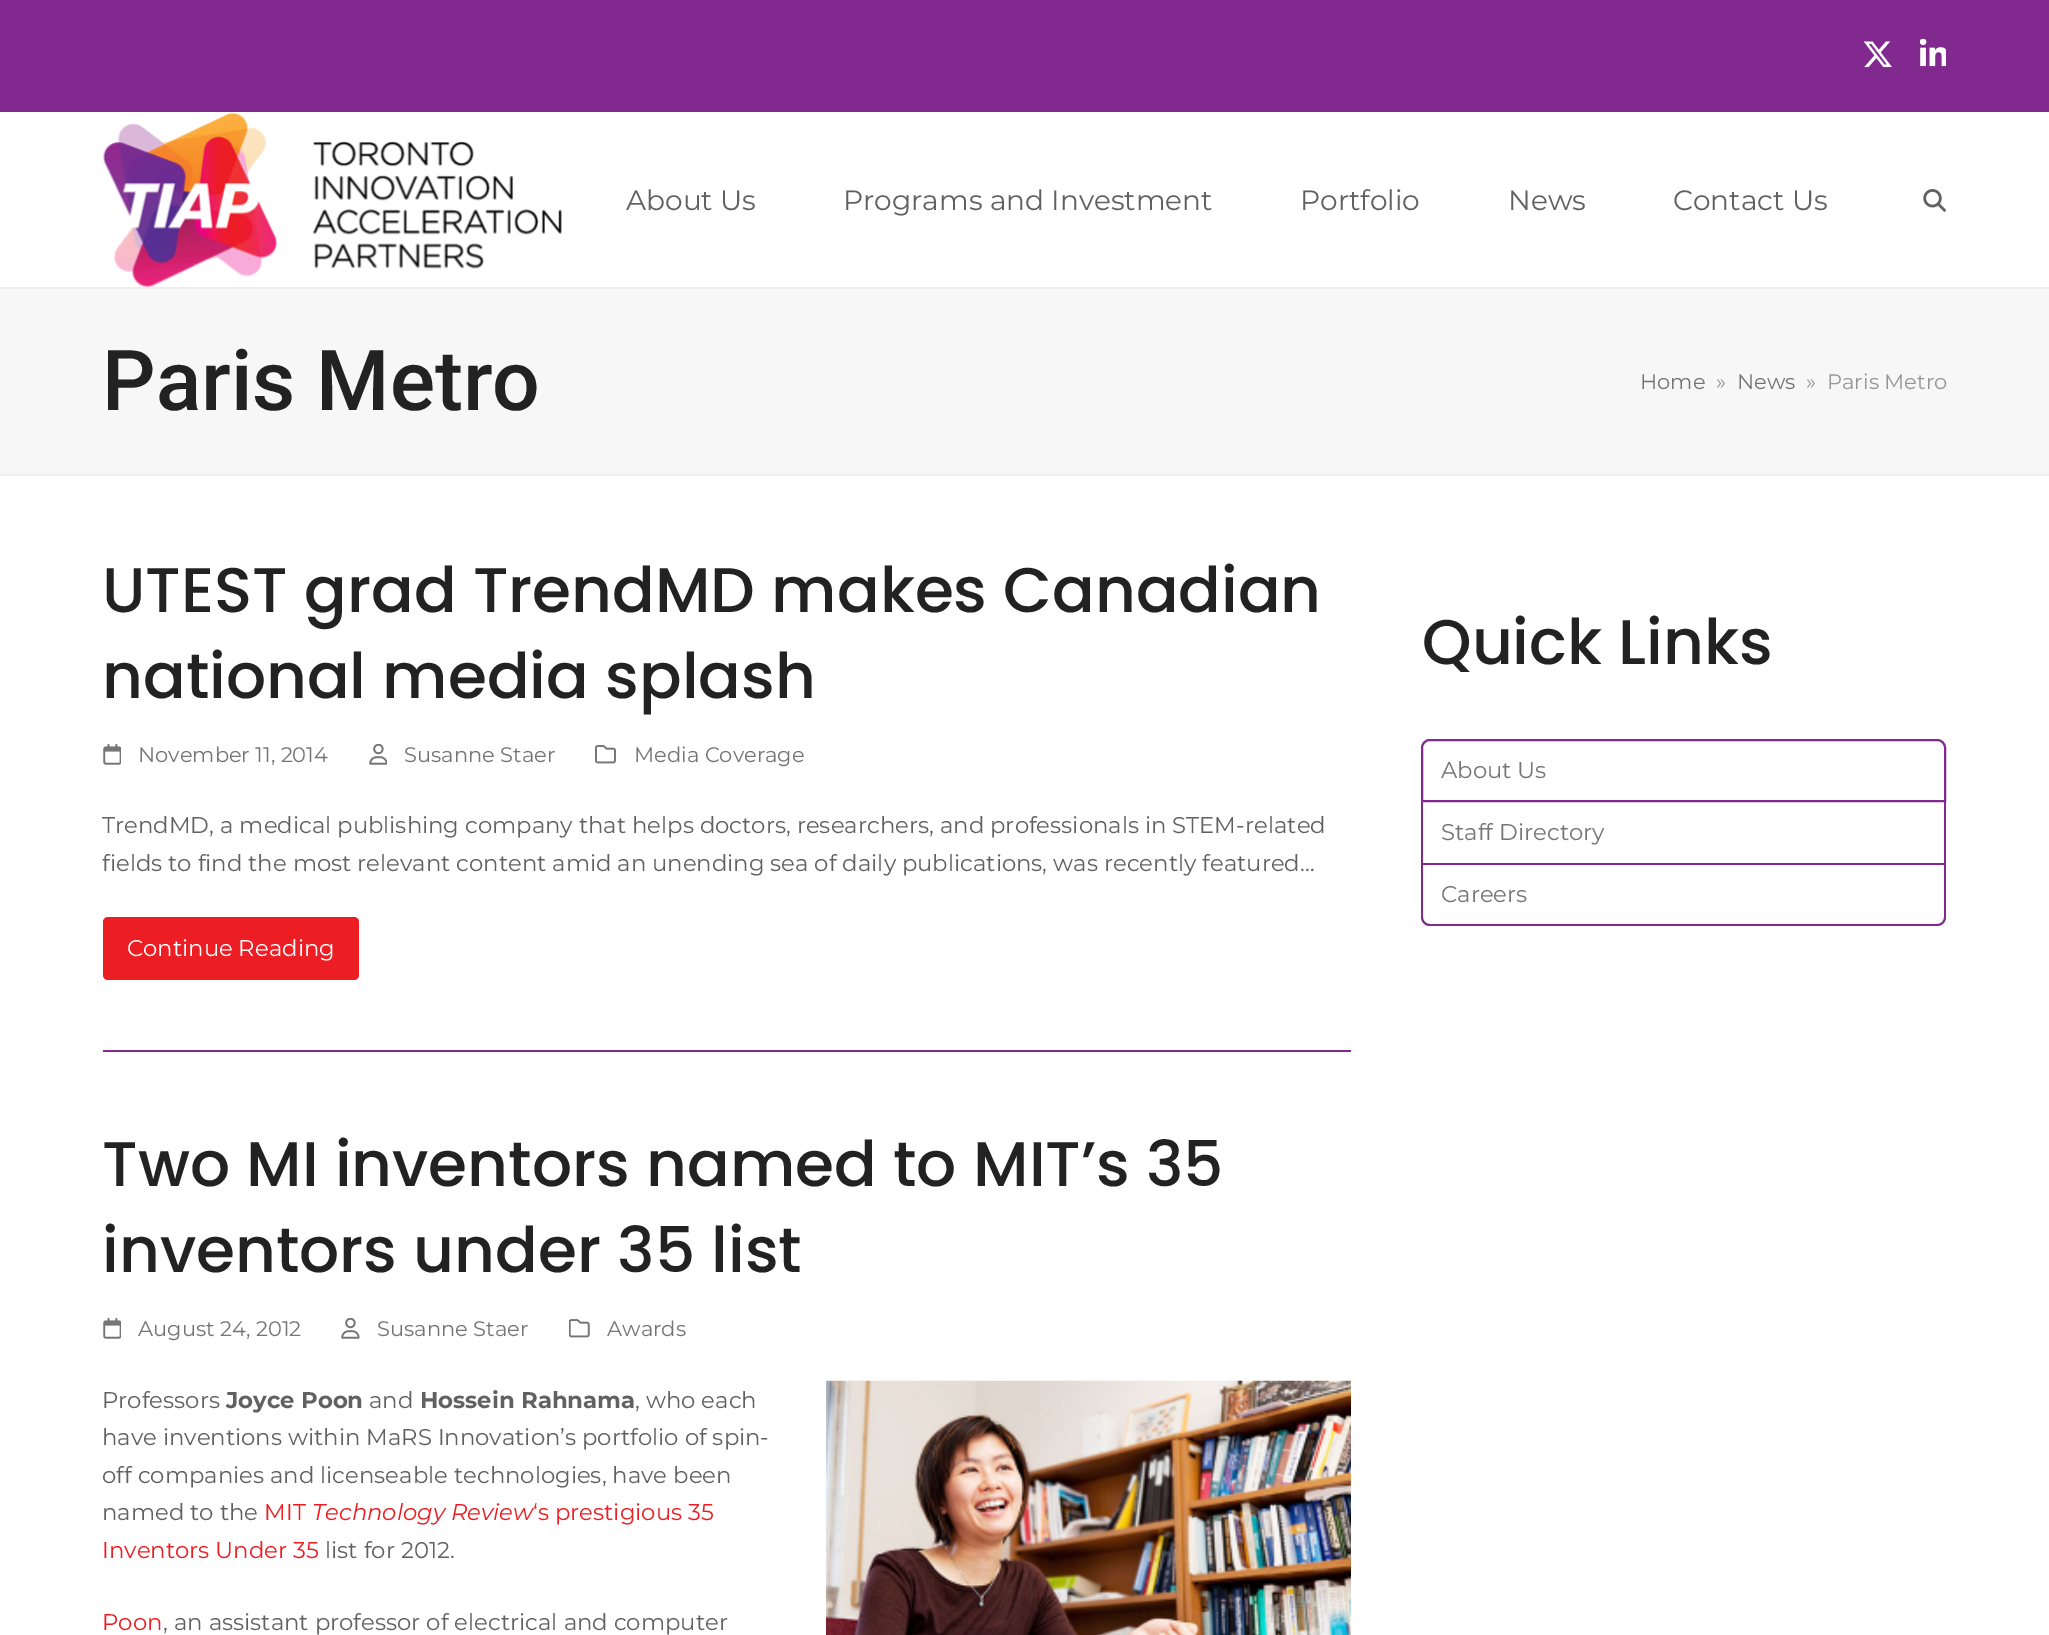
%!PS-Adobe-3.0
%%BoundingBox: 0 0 2049 1635
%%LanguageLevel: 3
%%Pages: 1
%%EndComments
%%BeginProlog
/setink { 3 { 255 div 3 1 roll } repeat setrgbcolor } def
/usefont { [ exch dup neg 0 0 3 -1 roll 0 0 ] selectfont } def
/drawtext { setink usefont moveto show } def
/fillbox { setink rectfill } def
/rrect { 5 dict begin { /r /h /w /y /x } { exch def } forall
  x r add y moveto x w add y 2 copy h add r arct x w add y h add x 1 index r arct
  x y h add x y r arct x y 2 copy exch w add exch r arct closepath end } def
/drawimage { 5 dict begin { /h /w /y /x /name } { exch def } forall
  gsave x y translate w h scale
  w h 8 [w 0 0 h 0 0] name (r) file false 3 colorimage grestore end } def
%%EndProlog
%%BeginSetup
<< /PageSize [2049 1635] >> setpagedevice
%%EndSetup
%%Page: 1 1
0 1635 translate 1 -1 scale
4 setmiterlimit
0 0 2049 1635 255 255 255 fillbox
0 0 2049 112 129 41 143 fillbox
(assets/img1.rgb) 1863 41 29 27 drawimage
(assets/img2.rgb) 1920 39 26 28 drawimage
0 287 2049 2 238 238 238 fillbox
(assets/img3.rgb) 102 113 460 175 drawimage
(About Us) 626 210 /Montserrat-Regular 28 97 97 97 drawtext
(Programs and Investment) 843 210 /Montserrat-Regular 28 97 97 97 drawtext
(Portfolio) 1300 210 /Montserrat-Regular 28 97 97 97 drawtext
(News) 1508 210 /Montserrat-Regular 28 97 97 97 drawtext
(Contact Us) 1673 210 /Montserrat-Regular 28 97 97 97 drawtext
(assets/img4.rgb) 1923 189 23 23 drawimage
0 289 2049 185 247 247 247 fillbox
0 474 2049 2 238 238 238 fillbox
(Paris Metro) 102 410 /Roboto-Medium 84 34 34 34 drawtext
(Home) 1640 389 /Montserrat-Regular 21 117 117 117 drawtext
(») 1716 389 /Montserrat-Regular 21 150 150 150 drawtext
(News) 1737 389 /Montserrat-Regular 21 117 117 117 drawtext
(») 1806 389 /Montserrat-Regular 21 150 150 150 drawtext
(Paris Metro) 1827 389 /Montserrat-Regular 21 150 150 150 drawtext
(UTEST grad TrendMD makes Canadian) 102 612 /Poppins-Medium 63 34 34 34 drawtext
(national media splash) 102 698 /Poppins-Medium 63 34 34 34 drawtext
(assets/img5.rgb) 103 744 18 21 drawimage
(November 11, 2014) 138 762 /Montserrat-Regular 21 117 117 117 drawtext
(assets/img6.rgb) 369 744 18 21 drawimage
(Susanne Staer) 404 762 /Montserrat-Regular 21 117 117 117 drawtext
(assets/img7.rgb) 595 745 21 19 drawimage
(Media Coverage) 634 762 /Montserrat-Regular 21 117 117 117 drawtext
(TrendMD, a medical publishing company that helps doctors, researchers, and professionals in STEM-related) 102 833 /Montserrat-Regular 22.75 97 97 97 drawtext
(fields to find the most relevant content amid an unending sea of daily publications, was recently featured…) 102 871 /Montserrat-Regular 22.75 97 97 97 drawtext
237 29 36 setink
103 917 256 63 5 rrect fill
(Continue Reading) 127 956 /Montserrat-Regular 22.75 255 255 255 drawtext
103 1050 1248 2 129 41 143 fillbox
(Two MI inventors named to MIT’s 35) 102 1186 /Poppins-Medium 63 34 34 34 drawtext
(inventors under 35 list) 102 1272 /Poppins-Medium 63 34 34 34 drawtext
(assets/img5.rgb) 103 1318 18 21 drawimage
(August 24, 2012) 138 1336 /Montserrat-Regular 21 117 117 117 drawtext
(assets/img8.rgb) 341 1318 19 21 drawimage
(Susanne Staer) 377 1336 /Montserrat-Regular 21 117 117 117 drawtext
(assets/img9.rgb) 569 1319 21 19 drawimage
(Awards) 607 1336 /Montserrat-Regular 21 117 117 117 drawtext
(Professors) 102 1408 /Montserrat-Regular 22.75 97 97 97 drawtext
(Joyce Poon) 226 1408 /Montserrat-Bold 22.75 97 97 97 drawtext
(and) 369 1408 /Montserrat-Regular 22.75 97 97 97 drawtext
(Hossein Rahnama) 420 1408 /Montserrat-Bold 22.75 97 97 97 drawtext
(, who each) 635 1408 /Montserrat-Regular 22.75 97 97 97 drawtext
(have inventions within MaRS Innovation’s portfolio of spin-) 102 1445 /Montserrat-Regular 22.75 97 97 97 drawtext
(off companies and licenseable technologies, have been) 102 1483 /Montserrat-Regular 22.75 97 97 97 drawtext
(named to the) 102 1520 /Montserrat-Regular 22.75 97 97 97 drawtext
(MIT) 264 1520 /Montserrat-Regular 22.75 237 29 36 drawtext
(Technology Review) 312 1520 /Montserrat-Italic 22.75 237 29 36 drawtext
(‘s prestigious 35) 533 1520 /Montserrat-Regular 22.75 237 29 36 drawtext
(Inventors Under 35) 102 1558 /Montserrat-Regular 22.75 237 29 36 drawtext
(list for 2012.) 325 1558 /Montserrat-Regular 22.75 97 97 97 drawtext
(assets/img10.rgb) 826 1380 525 255 drawimage
(Poon) 102 1630 /Montserrat-Regular 22.75 237 29 36 drawtext
(, an assistant professor of electrical and computer) 163 1630 /Montserrat-Regular 22.75 97 97 97 drawtext
(Quick Links) 1422 664 /Poppins-Medium 63 34 34 34 drawtext
129 41 143 setink
2 setlinewidth
1430 740 moveto 1937 740 lineto 1941.5 740 1945 743.5 1945 748 curveto 1945 801 lineto 1422 801 lineto 1422 748 lineto 1422 743.5 1425.5 740 1430 740 curveto closepath stroke
(About Us) 1441 778 /Montserrat-Regular 22.75 117 117 117 drawtext
1944 802 2 63 129 41 143 fillbox
1421 863 525 2 129 41 143 fillbox
1421 802 2 63 129 41 143 fillbox
(Staff Directory) 1441 840 /Montserrat-Regular 22.75 117 117 117 drawtext
129 41 143 setink
1421 864 moveto 1946 864 lineto 1946 917 lineto 1946 922 1942 926 1937 926 curveto 1430 926 lineto 1425 926 1421 922 1421 917 curveto closepath 1423 864 moveto 1944 864 lineto 1944 917 lineto 1944 921 1941 924 1937 924 curveto 1430 924 lineto 1426 924 1423 921 1423 917 curveto closepath eofill
(Careers) 1441 902 /Montserrat-Regular 22.75 117 117 117 drawtext
showpage
%%EOF
